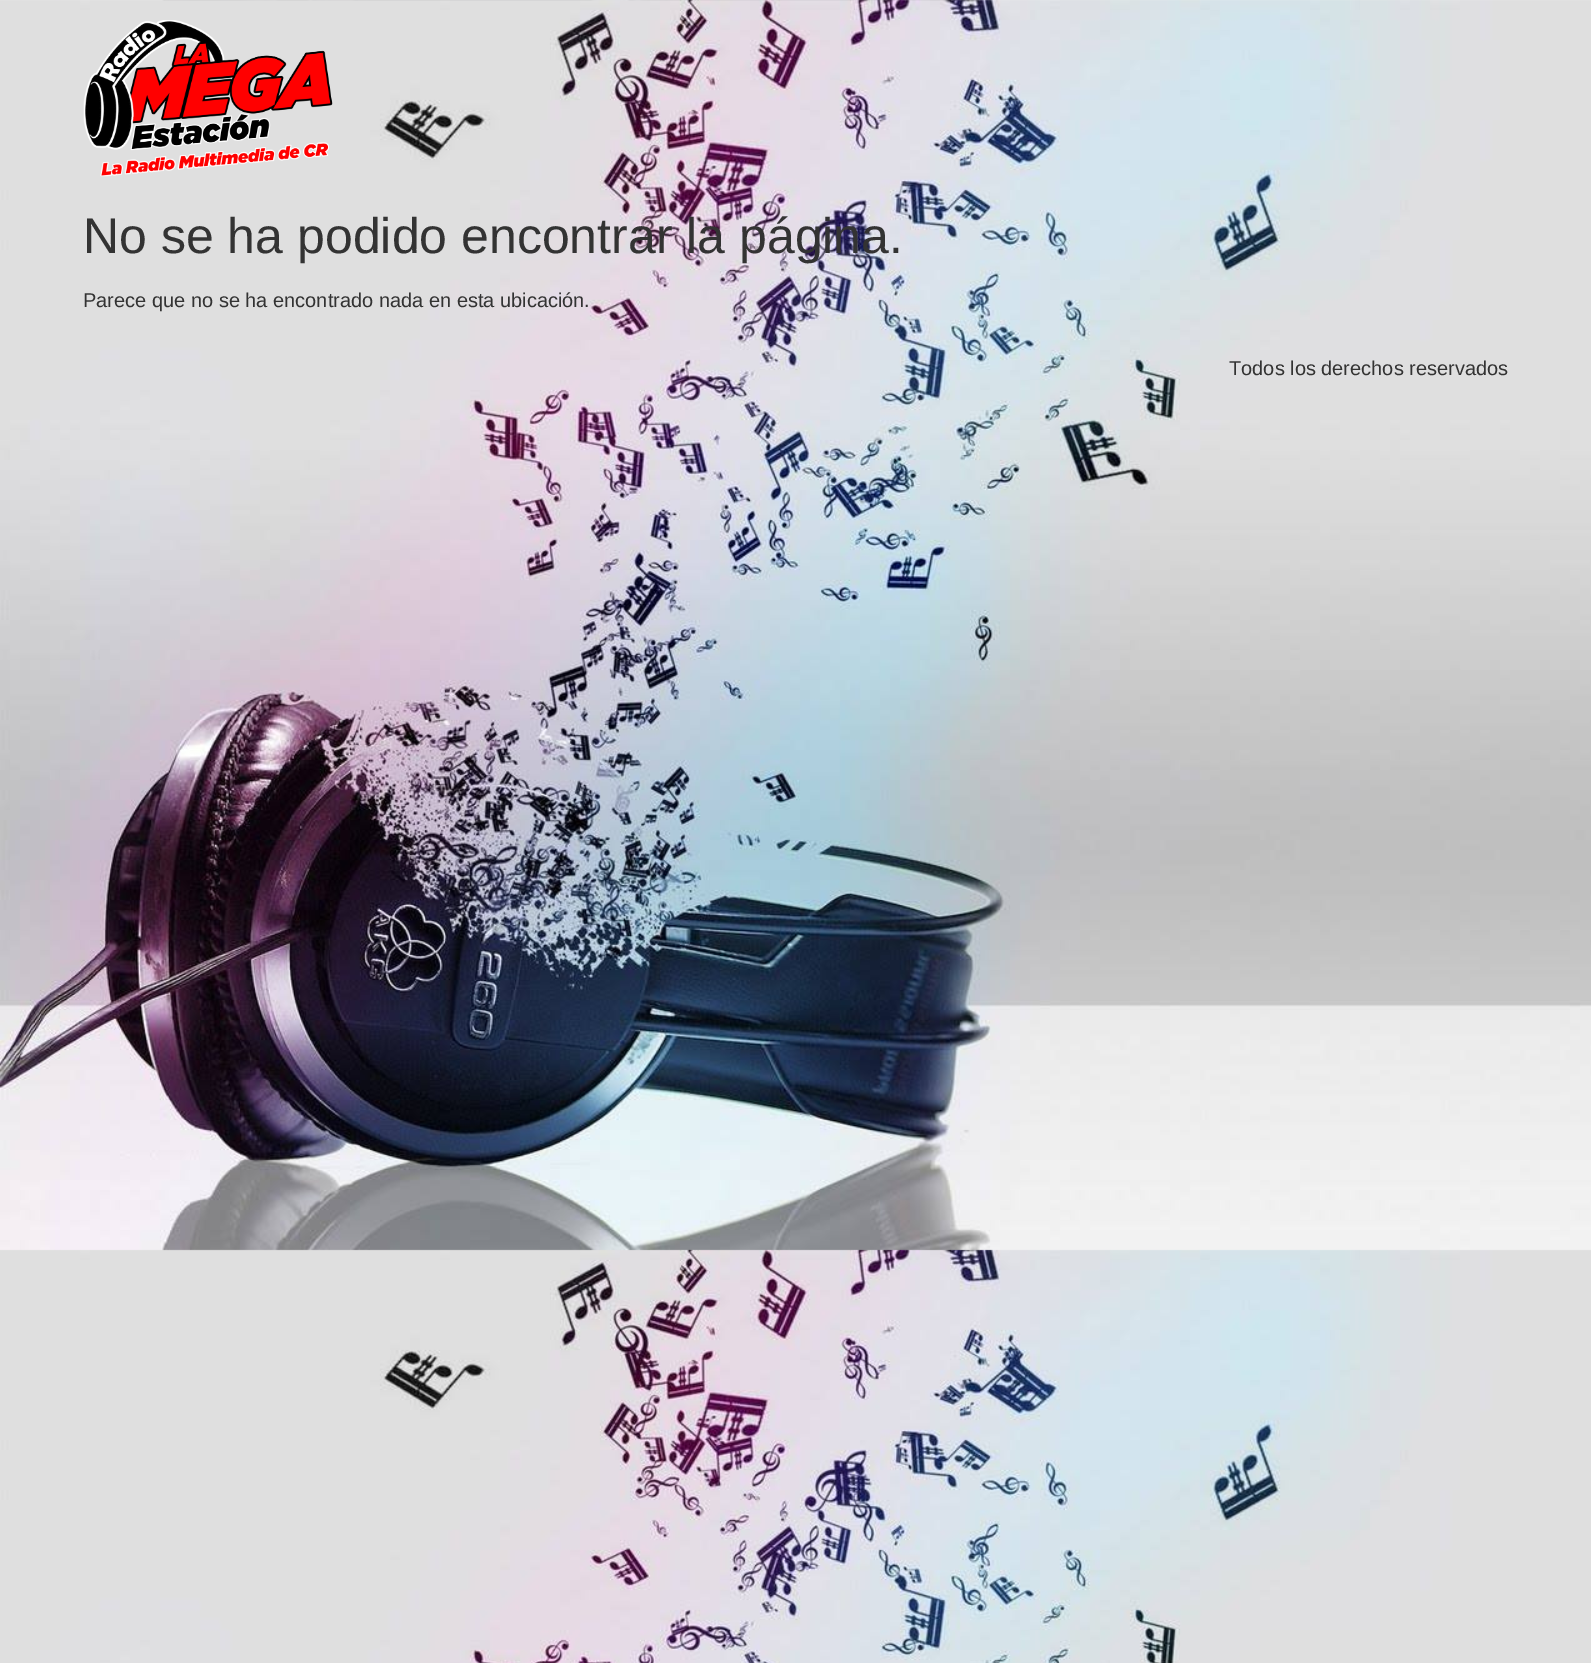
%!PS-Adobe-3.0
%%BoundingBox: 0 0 1591 1663
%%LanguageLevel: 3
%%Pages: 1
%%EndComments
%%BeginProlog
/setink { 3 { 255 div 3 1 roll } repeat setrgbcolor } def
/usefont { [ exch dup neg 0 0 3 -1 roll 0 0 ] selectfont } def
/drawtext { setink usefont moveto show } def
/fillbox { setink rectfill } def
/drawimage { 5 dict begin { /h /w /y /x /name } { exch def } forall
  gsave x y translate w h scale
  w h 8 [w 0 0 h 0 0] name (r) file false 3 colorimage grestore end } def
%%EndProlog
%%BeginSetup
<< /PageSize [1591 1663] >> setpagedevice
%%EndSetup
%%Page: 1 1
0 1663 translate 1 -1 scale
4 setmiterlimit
0 0 1591 1663 255 255 255 fillbox
(assets/img1.rgb) 0 0 1591 1663 drawimage
(assets/img2.rgb) 83 20 250 157 drawimage
(No se ha podido encontrar la página.) 83 253 /LiberationSans-Regular 50 51 51 51 drawtext
(Parece que no se ha encontrado nada en esta ubicación.) 83 307 /LiberationSans-Regular 20 51 51 51 drawtext
(Todos los derechos reservados) 1229 375 /LiberationSans-Regular 20 51 51 51 drawtext
showpage
%%EOF
